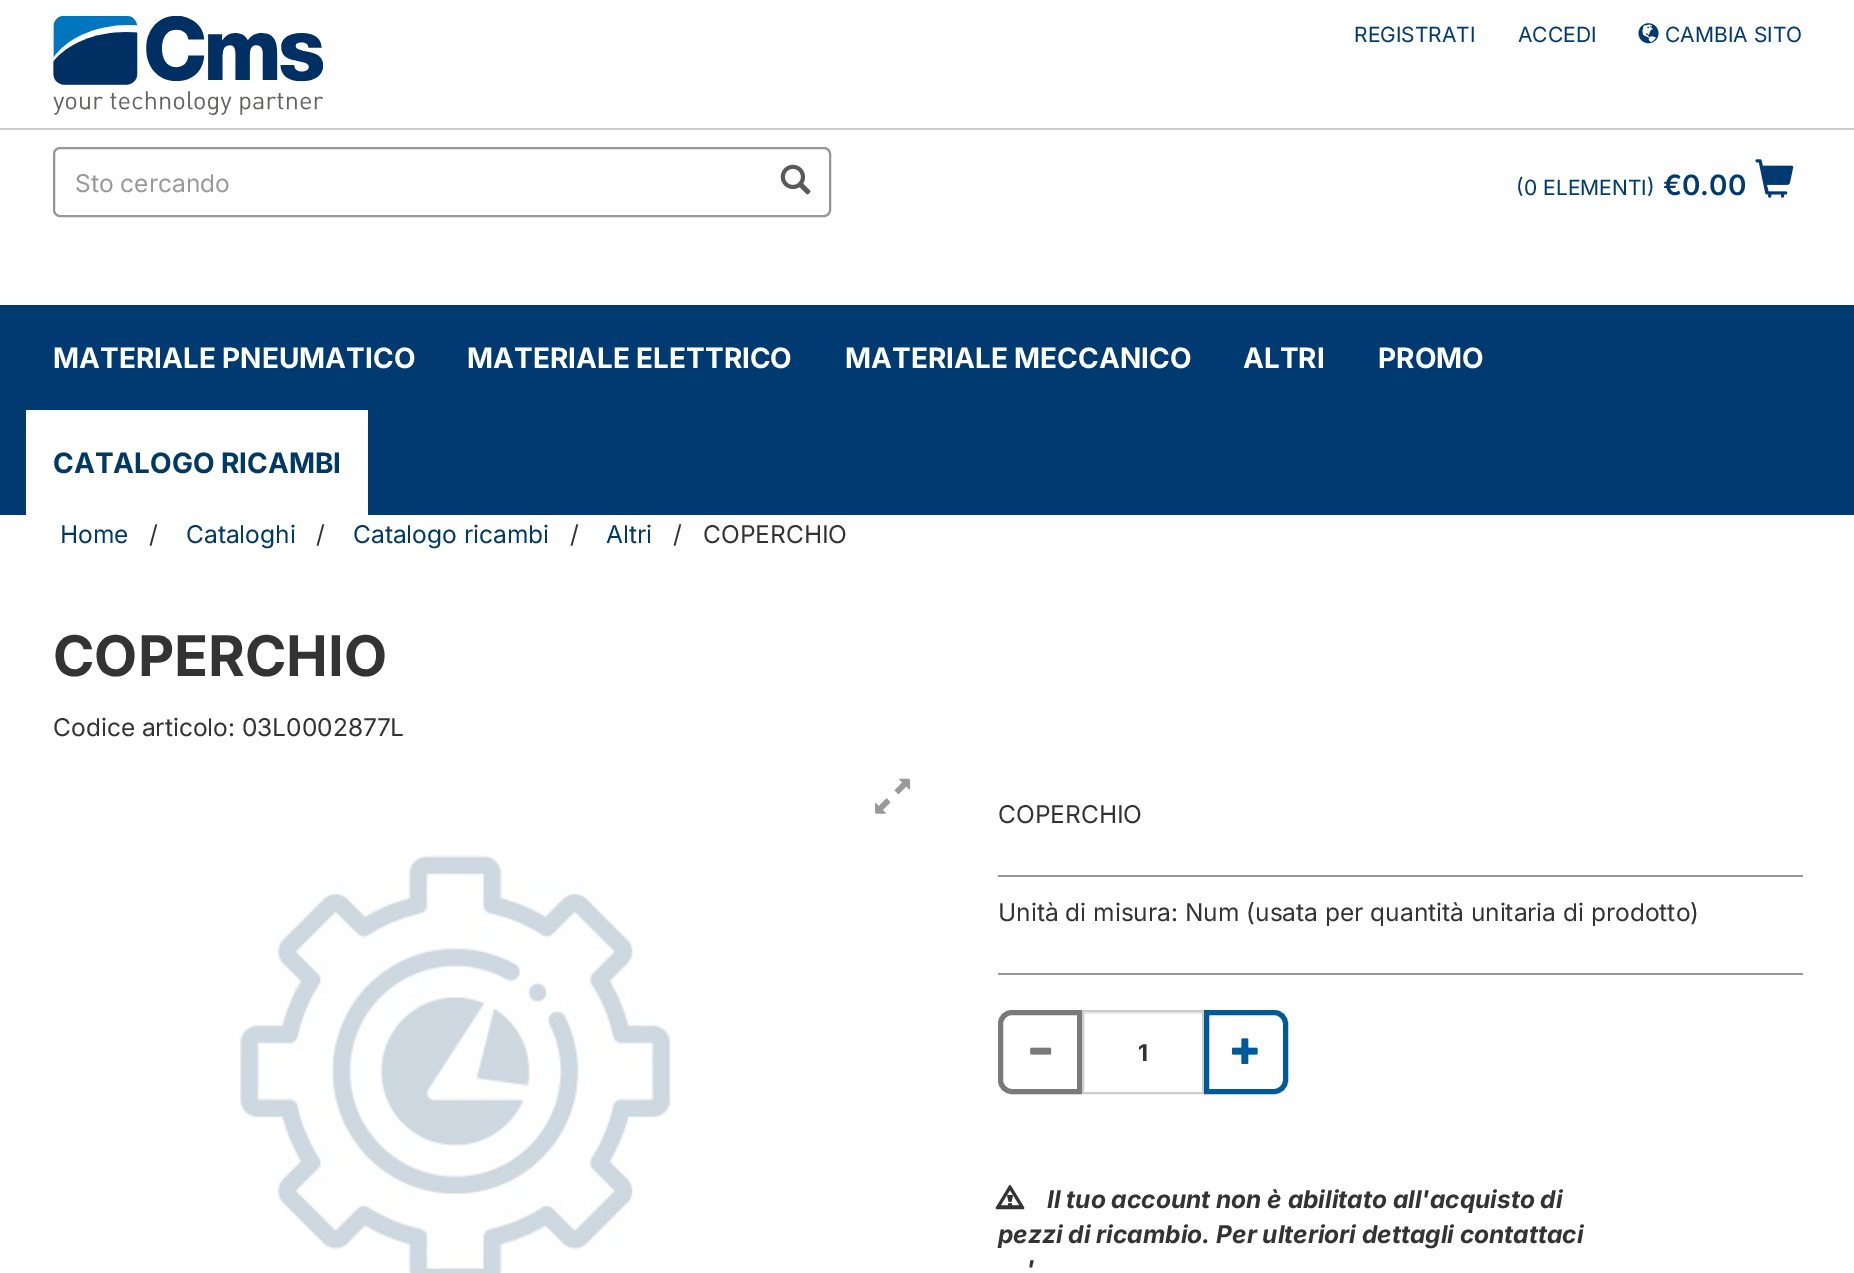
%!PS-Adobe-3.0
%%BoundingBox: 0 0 1854 1273
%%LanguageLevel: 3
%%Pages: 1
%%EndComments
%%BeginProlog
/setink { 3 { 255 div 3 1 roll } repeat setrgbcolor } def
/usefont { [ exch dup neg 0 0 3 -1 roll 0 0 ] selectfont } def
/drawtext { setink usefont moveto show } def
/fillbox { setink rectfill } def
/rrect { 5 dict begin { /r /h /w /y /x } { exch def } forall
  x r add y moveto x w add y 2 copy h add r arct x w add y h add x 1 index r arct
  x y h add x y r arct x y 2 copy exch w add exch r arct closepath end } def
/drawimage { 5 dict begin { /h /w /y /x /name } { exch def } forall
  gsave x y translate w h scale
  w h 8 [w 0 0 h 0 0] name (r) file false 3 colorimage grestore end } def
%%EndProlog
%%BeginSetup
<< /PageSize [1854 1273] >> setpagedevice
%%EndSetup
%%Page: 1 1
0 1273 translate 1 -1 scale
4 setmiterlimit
0 0 1854 1273 255 255 255 fillbox
(assets/img1.rgb) 53 16 271 99 drawimage
(REGISTRATI) 1354 42 /Inter-Regular 21 0 58 112 drawtext
(ACCEDI) 1518 42 /Inter-Regular 21 0 58 112 drawtext
(assets/img2.rgb) 1638 23 21 21 drawimage
(CAMBIA SITO) 1665 42 /Inter-Regular 21 0 58 112 drawtext
0 128 1854 2 204 204 204 fillbox
151 151 151 setink
2 setlinewidth
54 148 776 68 6 rrect stroke
(Sto cercando) 75 192 /Inter-Regular 24.5 153 153 153 drawtext
(assets/img3.rgb) 780 164 31 31 drawimage
(\() 1516 193 /Inter-Regular 21 0 58 112 drawtext
(0 ELEMENTI) 1524 195 /Inter-Regular 21 0 58 112 drawtext
(\)) 1647 193 /Inter-Regular 21 0 58 112 drawtext
(€0.00) 1663 195 /Inter-SemiBold 28 0 58 112 drawtext
(assets/img4.rgb) 1755 159 39 39 drawimage
0 305 1854 210 0 58 112 fillbox
(MATERIALE PNEUMATICO) 53 368 /Inter-Bold 28 255 255 255 drawtext
(MATERIALE ELETTRICO) 467 368 /Inter-Bold 28 255 255 255 drawtext
(MATERIALE MECCANICO) 845 368 /Inter-Bold 28 255 255 255 drawtext
(ALTRI) 1243 368 /Inter-Bold 28 255 255 255 drawtext
(PROMO) 1378 368 /Inter-Bold 28 255 255 255 drawtext
26 410 342 105 255 255 255 fillbox
(CATALOGO RICAMBI) 53 473 /Inter-Bold 28 0 56 102 drawtext
(Home) 60 543 /Inter-Regular 24.5 0 56 102 drawtext
(/) 149 543 /Inter-Regular 24.5 51 51 51 drawtext
(Cataloghi) 186 543 /Inter-Regular 24.5 0 56 102 drawtext
(/) 316 543 /Inter-Regular 24.5 51 51 51 drawtext
(Catalogo ricambi) 353 543 /Inter-Regular 24.5 0 56 102 drawtext
(/) 570 543 /Inter-Regular 24.5 51 51 51 drawtext
(Altri) 606 543 /Inter-Regular 24.5 0 56 102 drawtext
(/) 673 543 /Inter-Regular 24.5 51 51 51 drawtext
(COPERCHIO) 703 543 /Inter-Regular 24.5 51 51 51 drawtext
(COPERCHIO) 53 676 /Inter-Bold 56 51 51 51 drawtext
(Codice articolo: 03L0002877L) 53 736 /Inter-Regular 24.5 51 51 51 drawtext
(assets/img5.rgb) 875 778 35 36 drawimage
(assets/img6.rgb) 237 855 434 418 drawimage
998 875 805 2 151 151 151 fillbox
(COPERCHIO) 998 823 /Inter-Regular 24.5 51 51 51 drawtext
998 973 805 2 151 151 151 fillbox
(Unità di misura: Num \(usata per quantità unitaria di prodotto\)) 998 921 /Inter-Regular 24.5 51 51 51 drawtext
122 122 122 setink
5 setlinewidth
1012 1012.5 moveto 1079.5 1012.5 lineto 1079.5 1091.5 lineto 1012 1091.5 lineto 1005.5 1091.5 1000.5 1086.5 1000.5 1080 curveto 1000.5 1024 lineto 1000.5 1017.5 1005.5 1012.5 1012 1012.5 curveto closepath stroke
(assets/img7.rgb) 1030 1047 22 8 drawimage
1083 1012 119 2 236 236 236 fillbox
204 204 204 setink
2 setlinewidth
1083 1011 120 82 rectstroke
(1) 1138 1061 /Inter-Bold 23 51 51 51 drawtext
0 89 153 setink
5 setlinewidth
1206.5 1012.5 moveto 1274 1012.5 lineto 1280.5 1012.5 1285.5 1017.5 1285.5 1024 curveto 1285.5 1080 lineto 1285.5 1086.5 1280.5 1091.5 1274 1091.5 curveto 1206.5 1091.5 lineto closepath stroke
(assets/img8.rgb) 1232 1038 26 26 drawimage
(assets/img9.rgb) 995 1184 30 26 drawimage
(Il tuo account non è abilitato all'acquisto di) 1047 1208 /Inter-BoldItalic 24.5 51 51 51 drawtext
(pezzi di ricambio. Per ulteriori dettagli contattaci) 998 1243 /Inter-BoldItalic 24.5 51 51 51 drawtext
(') 1026 1278 /Inter-BoldItalic 24.5 51 51 51 drawtext
showpage
%%EOF
